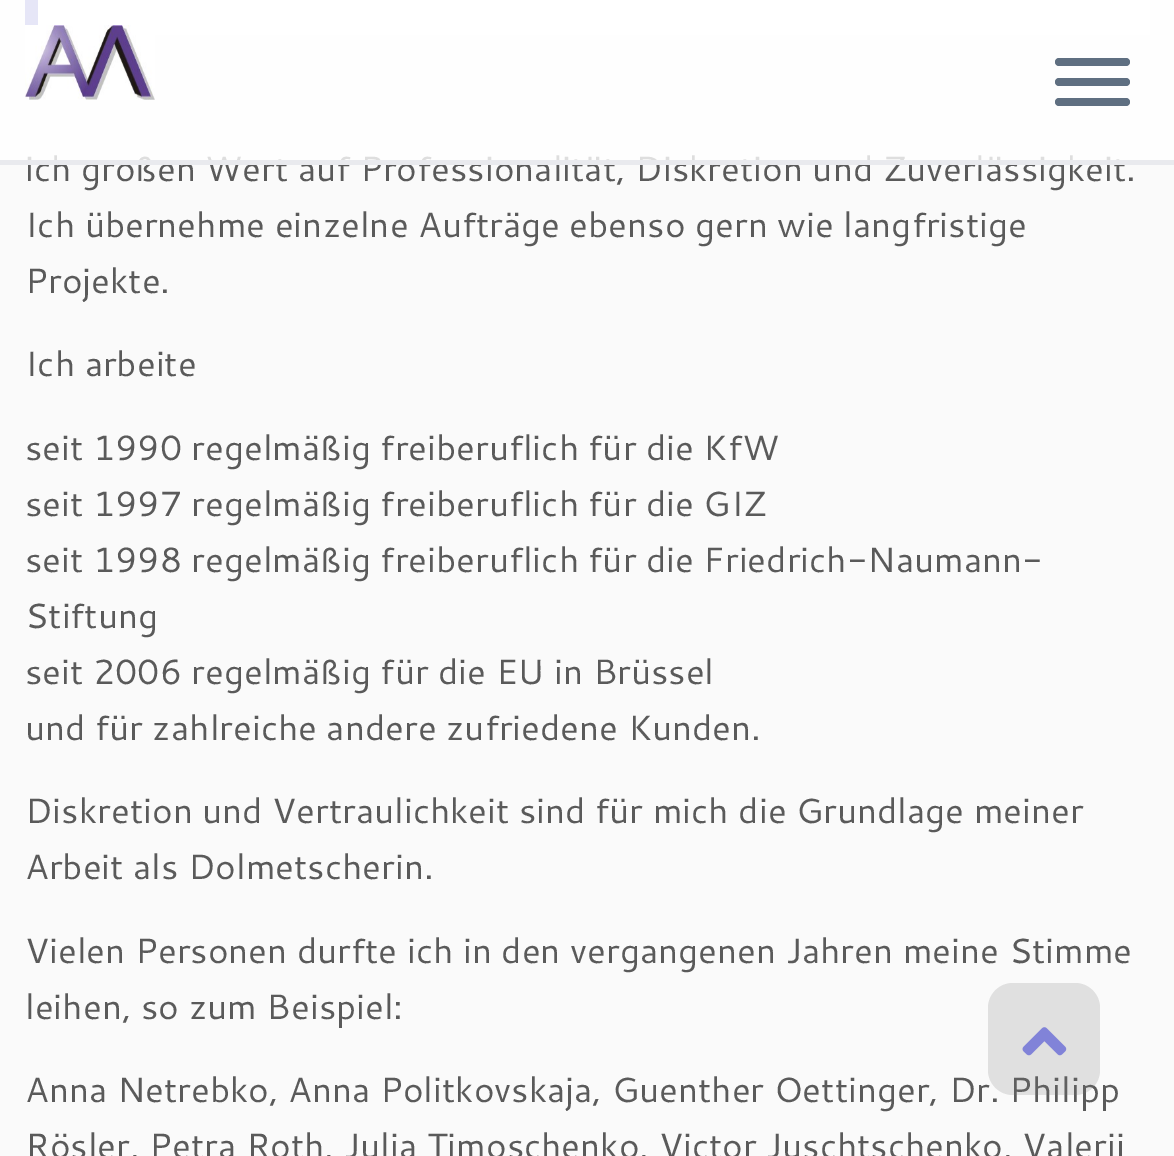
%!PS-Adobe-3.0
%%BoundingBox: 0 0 1174 1156
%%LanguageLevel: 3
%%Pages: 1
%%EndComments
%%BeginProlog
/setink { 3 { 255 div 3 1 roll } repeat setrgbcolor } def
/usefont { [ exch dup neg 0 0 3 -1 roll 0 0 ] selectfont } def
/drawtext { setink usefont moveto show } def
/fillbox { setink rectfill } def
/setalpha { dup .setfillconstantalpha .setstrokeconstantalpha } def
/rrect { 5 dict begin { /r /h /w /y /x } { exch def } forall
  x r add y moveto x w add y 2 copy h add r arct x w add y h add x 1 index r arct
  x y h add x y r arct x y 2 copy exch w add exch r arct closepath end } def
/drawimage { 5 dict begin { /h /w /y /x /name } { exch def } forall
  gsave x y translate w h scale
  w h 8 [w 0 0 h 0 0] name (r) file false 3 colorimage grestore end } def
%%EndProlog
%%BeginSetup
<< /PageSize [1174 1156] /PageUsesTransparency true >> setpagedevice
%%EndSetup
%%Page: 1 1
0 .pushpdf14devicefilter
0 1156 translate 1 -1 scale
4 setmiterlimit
0 0 1174 1156 250 250 250 fillbox
38 0 1112 35 255 255 255 fillbox
25 0 13 25 129 131 216 fillbox
(ich großen Wert auf Professionalität, Diskretion und Zuverlässigkeit.) 25 181 /Cantarell-Regular 35 90 90 90 drawtext
0.8 setalpha
0 0 1174 160 255 255 255 fillbox
1 setalpha
0 160 1174 5 233 234 238 fillbox
(assets/img1.rgb) 25 25 130 75 drawimage
95 111 129 setink
1055 58 75 8 4 rrect fill
1055 78 75 8 4 rrect fill
1055 98 75 8 4 rrect fill
(Ich übernehme einzelne Aufträge ebenso gern wie langfristige) 25 237 /Cantarell-Regular 35 90 90 90 drawtext
(Projekte.) 25 293 /Cantarell-Regular 35 90 90 90 drawtext
(Ich arbeite) 25 376 /Cantarell-Regular 35 90 90 90 drawtext
(seit 1990 regelmäßig freiberuflich für die KfW) 25 460 /Cantarell-Regular 35 90 90 90 drawtext
(seit 1997 regelmäßig freiberuflich für die GIZ) 25 516 /Cantarell-Regular 35 90 90 90 drawtext
(seit 1998 regelmäßig freiberuflich für die Friedrich-Naumann-) 25 572 /Cantarell-Regular 35 90 90 90 drawtext
(Stiftung) 25 628 /Cantarell-Regular 35 90 90 90 drawtext
(seit 2006 regelmäßig für die EU in Brüssel) 25 684 /Cantarell-Regular 35 90 90 90 drawtext
(und für zahlreiche andere zufriedene Kunden.) 25 740 /Cantarell-Regular 35 90 90 90 drawtext
(Diskretion und Vertraulichkeit sind für mich die Grundlage meiner) 25 823 /Cantarell-Regular 35 90 90 90 drawtext
(Arbeit als Dolmetscherin.) 25 879 /Cantarell-Regular 35 90 90 90 drawtext
(Vielen Personen durfte ich in den vergangenen Jahren meine Stimme) 25 963 /Cantarell-Regular 35 90 90 90 drawtext
(leihen, so zum Beispiel:) 25 1019 /Cantarell-Regular 35 90 90 90 drawtext
(Anna Netrebko, Anna Politkovskaja, Guenther Oettinger, Dr. Philipp) 25 1102 /Cantarell-Regular 35 90 90 90 drawtext
(Rösler, Petra Roth, Julia Timoschenko, Victor Juschtschenko, Valerij) 25 1158 /Cantarell-Regular 35 90 90 90 drawtext
0.2 setalpha
119 119 119 setink
988 983 112 112 25 rrect fill
1 setalpha
(assets/img2.rgb) 1022 1027 45 29 drawimage
.poppdf14devicefilter showpage
%%EOF
